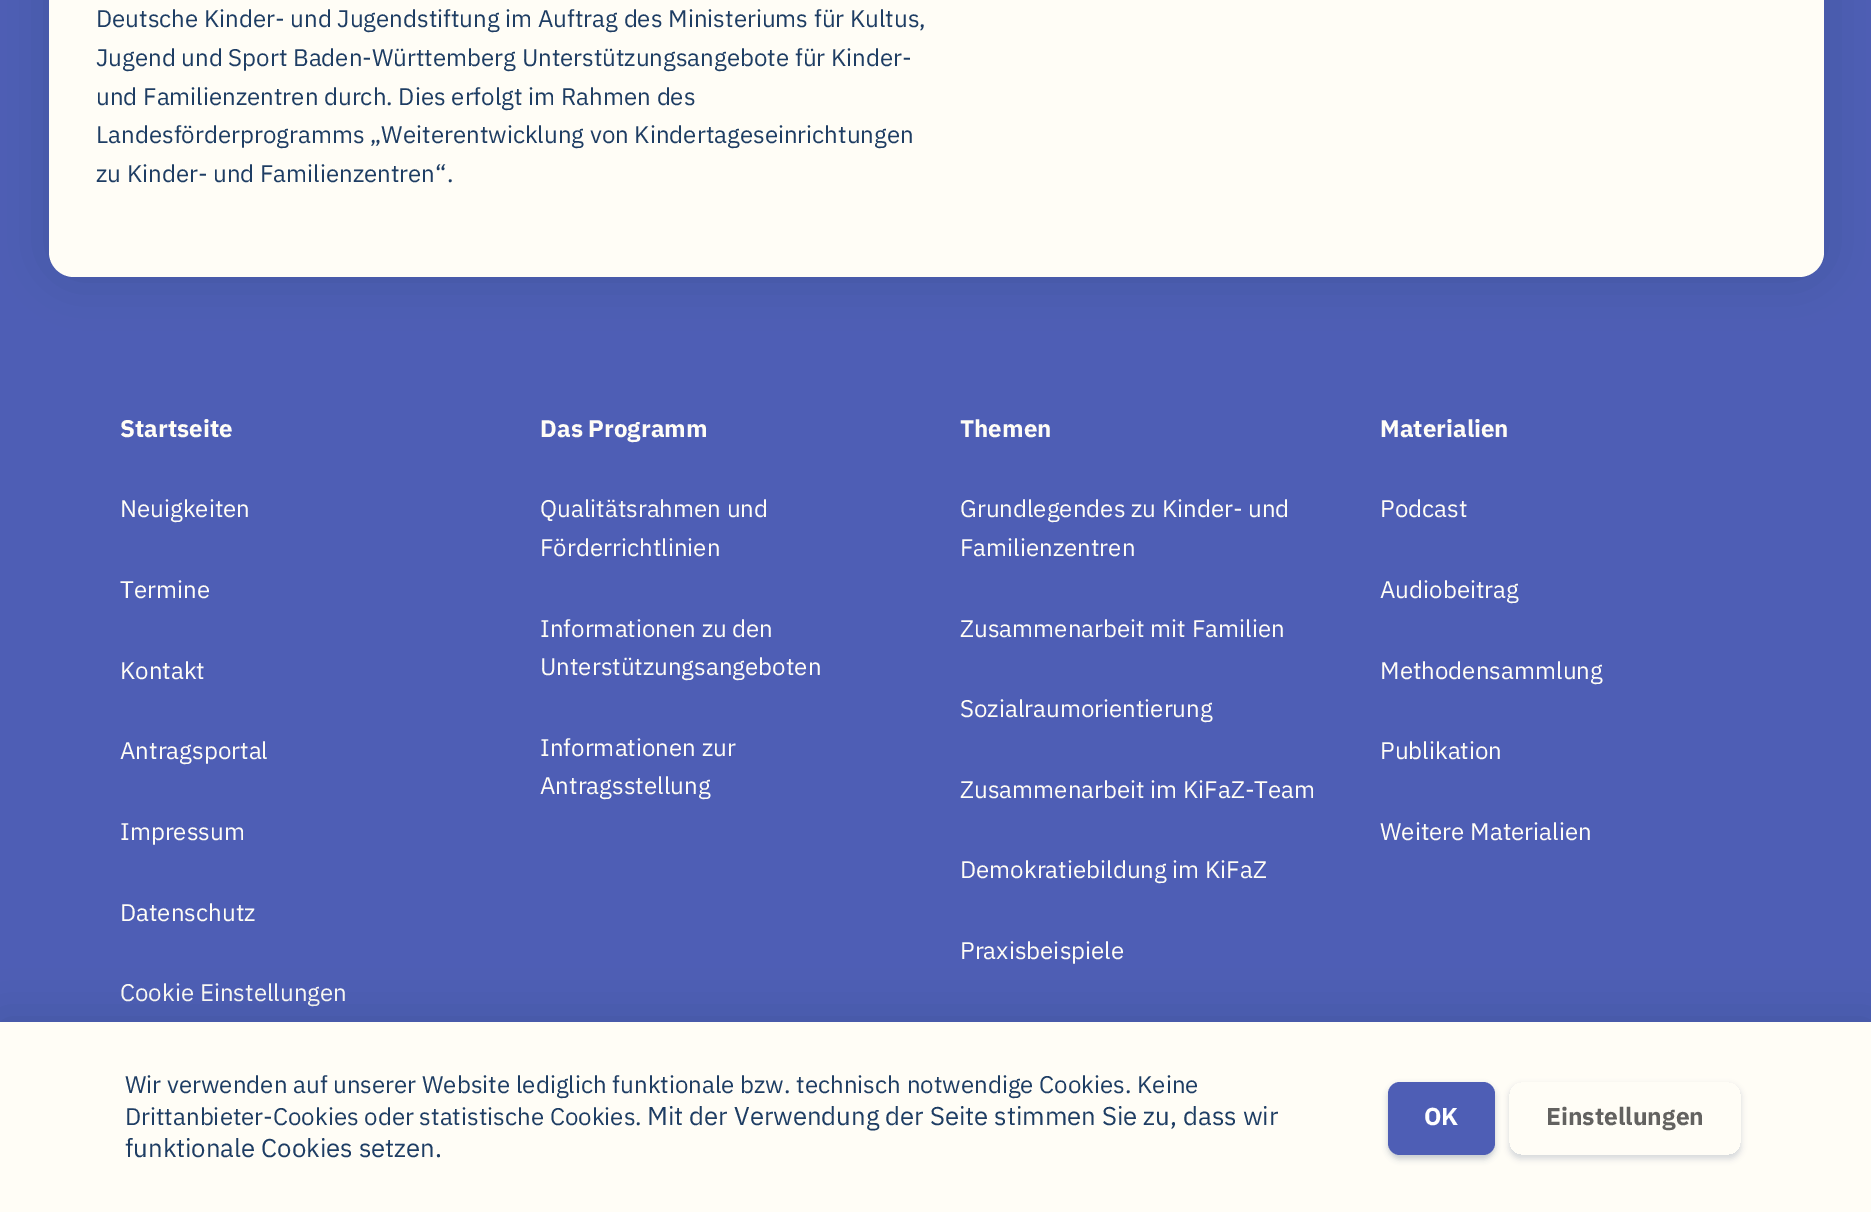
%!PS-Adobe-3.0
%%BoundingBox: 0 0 1871 1212
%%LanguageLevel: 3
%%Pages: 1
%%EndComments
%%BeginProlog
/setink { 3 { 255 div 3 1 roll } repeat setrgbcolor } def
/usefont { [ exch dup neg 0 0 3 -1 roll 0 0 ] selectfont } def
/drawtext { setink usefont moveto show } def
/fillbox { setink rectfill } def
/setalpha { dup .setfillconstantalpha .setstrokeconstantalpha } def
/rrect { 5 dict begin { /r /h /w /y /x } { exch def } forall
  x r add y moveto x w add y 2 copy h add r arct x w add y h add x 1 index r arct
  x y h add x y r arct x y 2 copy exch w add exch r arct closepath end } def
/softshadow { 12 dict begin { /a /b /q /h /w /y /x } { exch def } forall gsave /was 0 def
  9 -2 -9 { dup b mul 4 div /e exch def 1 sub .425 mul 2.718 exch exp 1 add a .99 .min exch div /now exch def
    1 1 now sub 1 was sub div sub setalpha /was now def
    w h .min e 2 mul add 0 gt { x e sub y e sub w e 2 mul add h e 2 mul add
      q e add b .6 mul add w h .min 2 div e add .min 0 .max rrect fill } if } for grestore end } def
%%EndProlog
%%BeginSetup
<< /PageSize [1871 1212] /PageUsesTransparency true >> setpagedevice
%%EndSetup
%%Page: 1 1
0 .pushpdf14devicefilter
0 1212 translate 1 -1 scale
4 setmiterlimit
0 0 1871 1212 78 94 181 fillbox
30 61 99 setink
49 -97 1775 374 25 24 0.25 softshadow
255 253 246 setink
49 -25 1775 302 25 rrect fill
(Deutsche Kinder- und Jugendstiftung im Auftrag des Ministeriums für Kultus,) 96 27 /IBMPlexSans-Regular 24.1 30 61 99 drawtext
(Jugend und Sport Baden-Württemberg Unterstützungsangebote für Kinder-) 96 66 /IBMPlexSans-Regular 24.1 30 61 99 drawtext
(und Familienzentren durch. Dies erfolgt im Rahmen des) 96 105 /IBMPlexSans-Regular 24.1 30 61 99 drawtext
(Landesförderprogramms „Weiterentwicklung von Kindertageseinrichtungen) 96 143 /IBMPlexSans-Regular 24.1 30 61 99 drawtext
(zu Kinder- und Familienzentren“.) 96 182 /IBMPlexSans-Regular 24.1 30 61 99 drawtext
(Startseite) 120 437 /IBMPlexSans-Bold 24.1 255 253 246 drawtext
(Neuigkeiten) 120 517 /IBMPlexSans-Regular 24.1 255 253 246 drawtext
(Termine) 120 598 /IBMPlexSans-Regular 24.1 255 253 246 drawtext
(Kontakt) 120 679 /IBMPlexSans-Regular 24.1 255 253 246 drawtext
(Antragsportal) 120 759 /IBMPlexSans-Regular 24.1 255 253 246 drawtext
(Impressum) 120 840 /IBMPlexSans-Regular 24.1 255 253 246 drawtext
(Datenschutz) 120 921 /IBMPlexSans-Regular 24.1 255 253 246 drawtext
(Cookie Einstellungen) 120 1001 /IBMPlexSans-Regular 24.1 255 253 246 drawtext
(Das Programm) 540 437 /IBMPlexSans-Bold 24.1 255 253 246 drawtext
(Qualitätsrahmen und) 540 517 /IBMPlexSans-Regular 24.1 255 253 246 drawtext
(Förderrichtlinien) 540 556 /IBMPlexSans-Regular 24.1 255 253 246 drawtext
(Informationen zu den) 540 637 /IBMPlexSans-Regular 24.1 255 253 246 drawtext
(Unterstützungsangeboten) 540 675 /IBMPlexSans-Regular 24.1 255 253 246 drawtext
(Informationen zur) 540 756 /IBMPlexSans-Regular 24.1 255 253 246 drawtext
(Antragsstellung) 540 794 /IBMPlexSans-Regular 24.1 255 253 246 drawtext
(Themen) 960 437 /IBMPlexSans-Bold 24.1 255 253 246 drawtext
(Grundlegendes zu Kinder- und) 960 517 /IBMPlexSans-Regular 24.1 255 253 246 drawtext
(Familienzentren) 960 556 /IBMPlexSans-Regular 24.1 255 253 246 drawtext
(Zusammenarbeit mit Familien) 960 637 /IBMPlexSans-Regular 24.1 255 253 246 drawtext
(Sozialraumorientierung) 960 717 /IBMPlexSans-Regular 24.1 255 253 246 drawtext
(Zusammenarbeit im KiFaZ-Team) 960 798 /IBMPlexSans-Regular 24.1 255 253 246 drawtext
(Demokratiebildung im KiFaZ) 960 878 /IBMPlexSans-Regular 24.1 255 253 246 drawtext
(Praxisbeispiele) 960 959 /IBMPlexSans-Regular 24.1 255 253 246 drawtext
(Materialien) 1380 437 /IBMPlexSans-Bold 24.1 255 253 246 drawtext
(Podcast) 1380 517 /IBMPlexSans-Regular 24.1 255 253 246 drawtext
(Audiobeitrag) 1380 598 /IBMPlexSans-Regular 24.1 255 253 246 drawtext
(Methodensammlung) 1380 679 /IBMPlexSans-Regular 24.1 255 253 246 drawtext
(Publikation) 1380 759 /IBMPlexSans-Regular 24.1 255 253 246 drawtext
(Weitere Materialien) 1380 840 /IBMPlexSans-Regular 24.1 255 253 246 drawtext
30 61 99 setink
0 1022 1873 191 0 24 0.25 softshadow
0 1022 1871 190 255 253 246 fillbox
(Wir verwenden auf unserer Website lediglich funktionale bzw. technisch notwendige Cookies. Keine) 125 1093 /IBMPlexSans-Regular 24.1 30 61 99 drawtext
(Drittanbieter-Cookies oder statistische Cookies.) 125 1125 /IBMPlexSans-Regular 24.1 30 61 99 drawtext
(Mit der Verwendung der Seite stimmen Sie zu, dass wir) 647 1125 /IBMPlexSans-Regular 25.7 30 61 99 drawtext
(funktionale Cookies setzen.) 125 1157 /IBMPlexSans-Regular 25.7 30 61 99 drawtext
1388 1085 107 74 12 3 0.25 softshadow
78 94 181 setink
1388 1082 107 73 12 rrect fill
(OK) 1424 1125 /IBMPlexSans-Bold 24.5 255 255 255 drawtext
gsave
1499 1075 moveto 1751 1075 lineto 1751 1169 lineto 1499 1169 lineto closepath 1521 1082 moveto 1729 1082 lineto 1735.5 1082 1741 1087.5 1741 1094 curveto 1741 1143 lineto 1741 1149.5 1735.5 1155 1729 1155 curveto 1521 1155 lineto 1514.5 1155 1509 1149.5 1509 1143 curveto 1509 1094 lineto 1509 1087.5 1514.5 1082 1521 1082 curveto closepath eoclip newpath
97 119 143 setink
1509 1085 232 74 12 3 0.25 softshadow
grestore
(Einstellungen) 1546 1125 /IBMPlexSans-Bold 24.5 99 98 96 drawtext
.poppdf14devicefilter showpage
%%EOF
